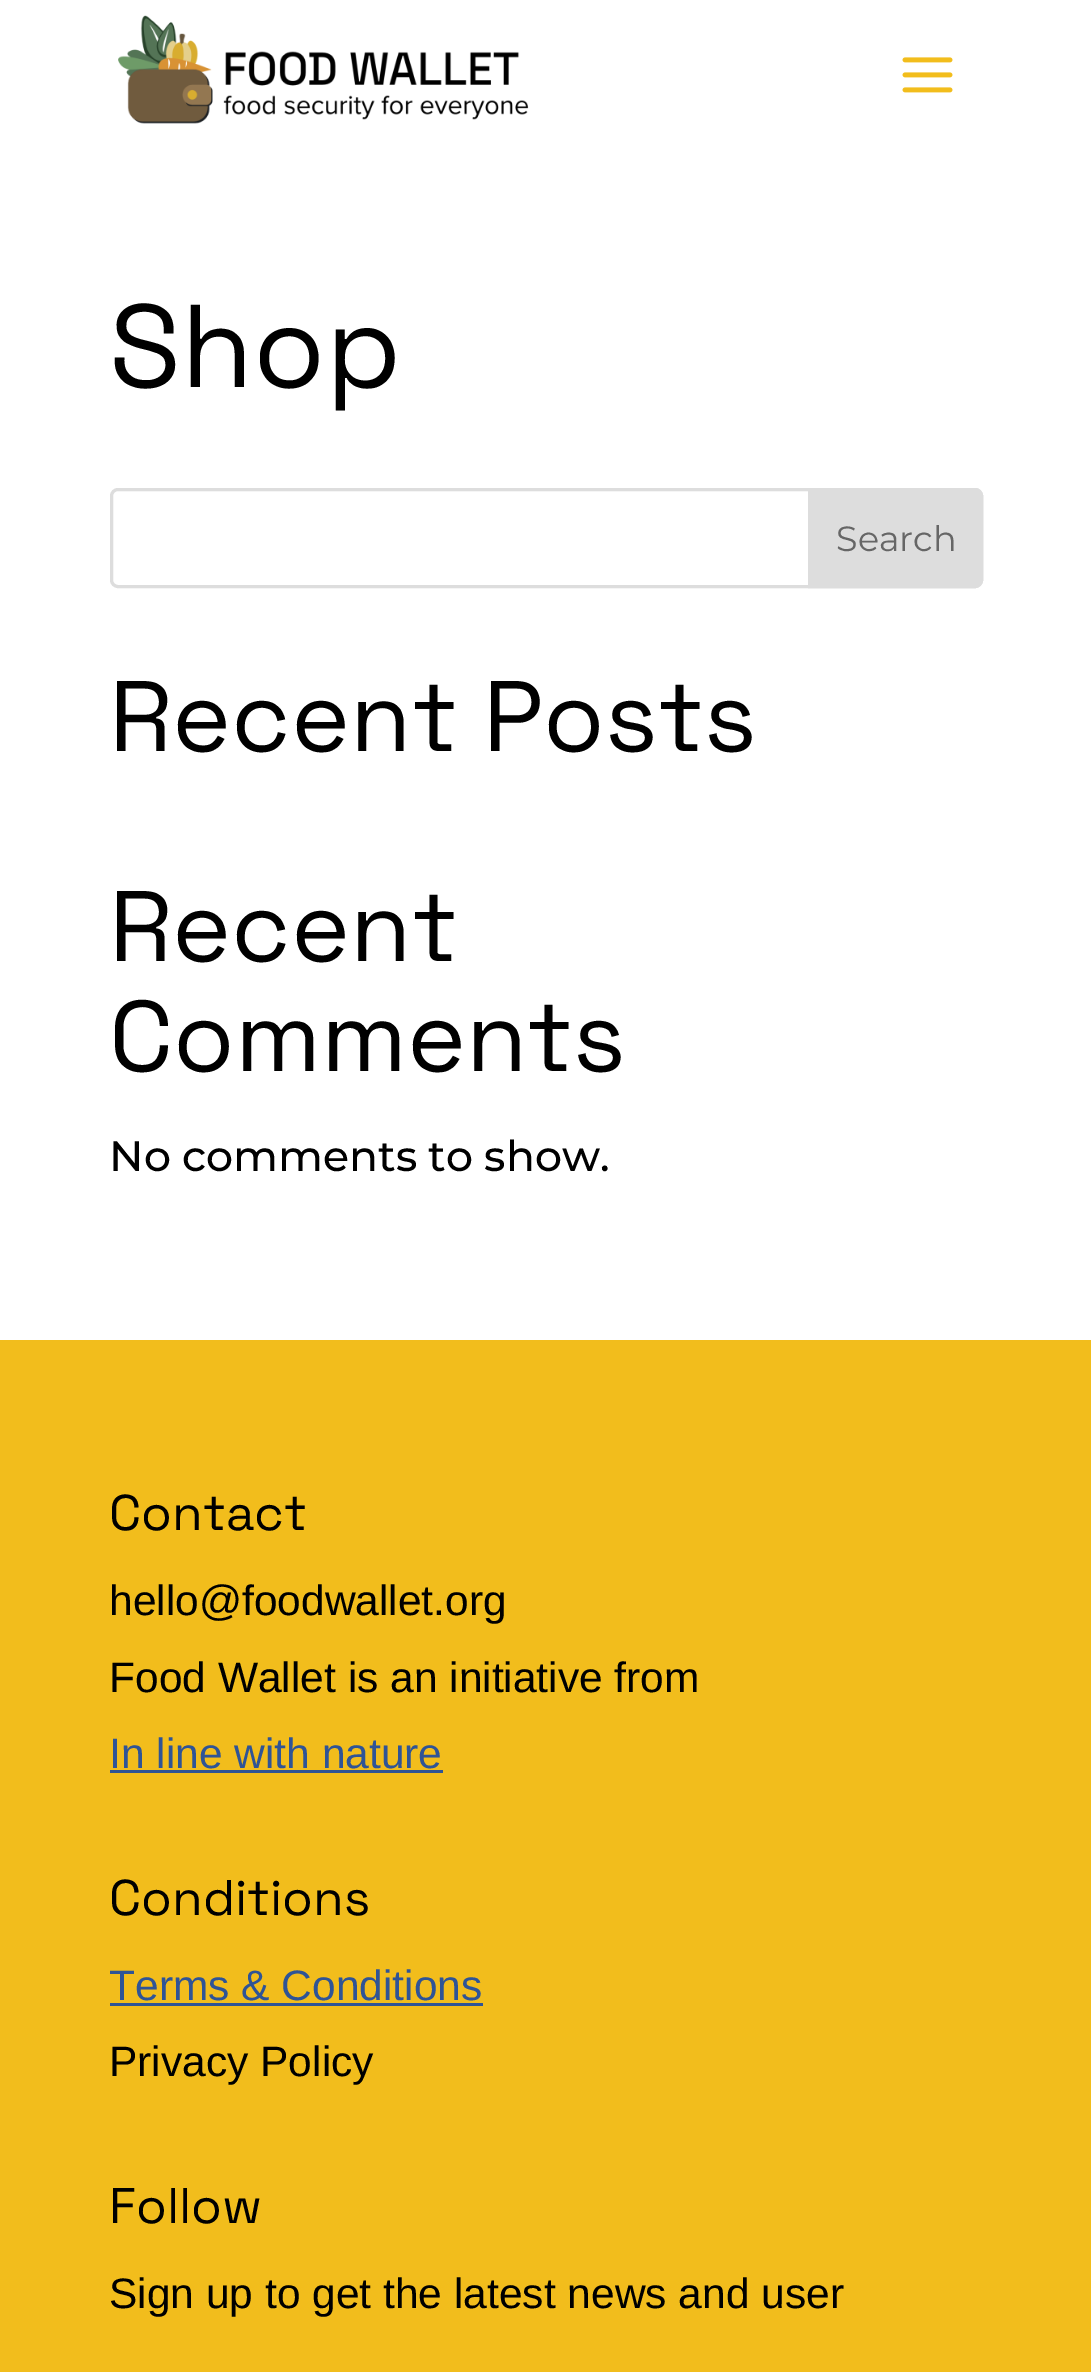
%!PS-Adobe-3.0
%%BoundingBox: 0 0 1091 2372
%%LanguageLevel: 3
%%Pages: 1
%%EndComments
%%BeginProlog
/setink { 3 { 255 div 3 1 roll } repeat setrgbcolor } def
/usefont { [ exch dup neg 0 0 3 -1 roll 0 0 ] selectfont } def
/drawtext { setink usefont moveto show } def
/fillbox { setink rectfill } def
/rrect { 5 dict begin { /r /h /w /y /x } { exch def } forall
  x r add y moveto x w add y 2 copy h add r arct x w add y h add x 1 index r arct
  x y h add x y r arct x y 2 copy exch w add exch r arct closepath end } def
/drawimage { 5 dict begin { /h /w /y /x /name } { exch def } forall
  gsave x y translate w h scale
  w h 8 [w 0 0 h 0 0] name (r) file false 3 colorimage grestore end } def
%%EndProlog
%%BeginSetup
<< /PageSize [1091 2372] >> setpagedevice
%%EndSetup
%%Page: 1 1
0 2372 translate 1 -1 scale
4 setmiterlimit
0 0 1091 2372 255 255 255 fillbox
(assets/img1.rgb) 118 15 411 109 drawimage
(assets/img2.rgb) 902 57 51 36 drawimage
(Shop) 109 387 /SpaceGrotesk-Regular 117.5 0 0 0 drawtext
221 221 221 setink
3 setlinewidth
111.5 489.5 870 97 6.5 rrect stroke
809.5 489.5 moveto 975 489.5 lineto 978.5 489.5 981.5 492.5 981.5 496 curveto 981.5 580 lineto 981.5 583.5 978.5 586.5 975 586.5 curveto 809.5 586.5 lineto closepath gsave fill grestore
stroke
(Search) 836 551 /Montserrat-Regular 35 102 102 102 drawtext
(Recent Posts) 109 751 /SpaceGrotesk-Regular 100 0 0 0 drawtext
(Recent) 109 961 /SpaceGrotesk-Regular 100 0 0 0 drawtext
(Comments) 109 1071 /SpaceGrotesk-Regular 100 0 0 0 drawtext
(No comments to show.) 109 1171 /Montserrat-Medium 42.5 0 0 0 drawtext
0 1340 1091 1032 242 189 28 fillbox
(Contact) 109 1530 /SpaceGrotesk-Regular 50 0 0 0 drawtext
(hello@foodwallet.org) 109 1615 /LiberationSans-Regular 42.5 0 0 0 drawtext
(Food Wallet is an initiative from) 109 1692 /LiberationSans-Regular 42.5 0 0 0 drawtext
(In line with nature) 109 1768 /LiberationSans-Regular 42.5 47 84 150 drawtext
110 1770 333 3 47 84 150 fillbox
(Conditions) 109 1915 /SpaceGrotesk-Regular 50 0 0 0 drawtext
(Terms & Conditions) 109 2000 /LiberationSans-Regular 42.5 47 84 150 drawtext
110 2003 373 3 47 84 150 fillbox
(Privacy Policy) 109 2076 /LiberationSans-Regular 42.5 0 0 0 drawtext
(Follow) 109 2223 /SpaceGrotesk-Regular 50 0 0 0 drawtext
(Sign up to get the latest news and user) 109 2308 /LiberationSans-Regular 42.5 0 0 0 drawtext
showpage
%%EOF
